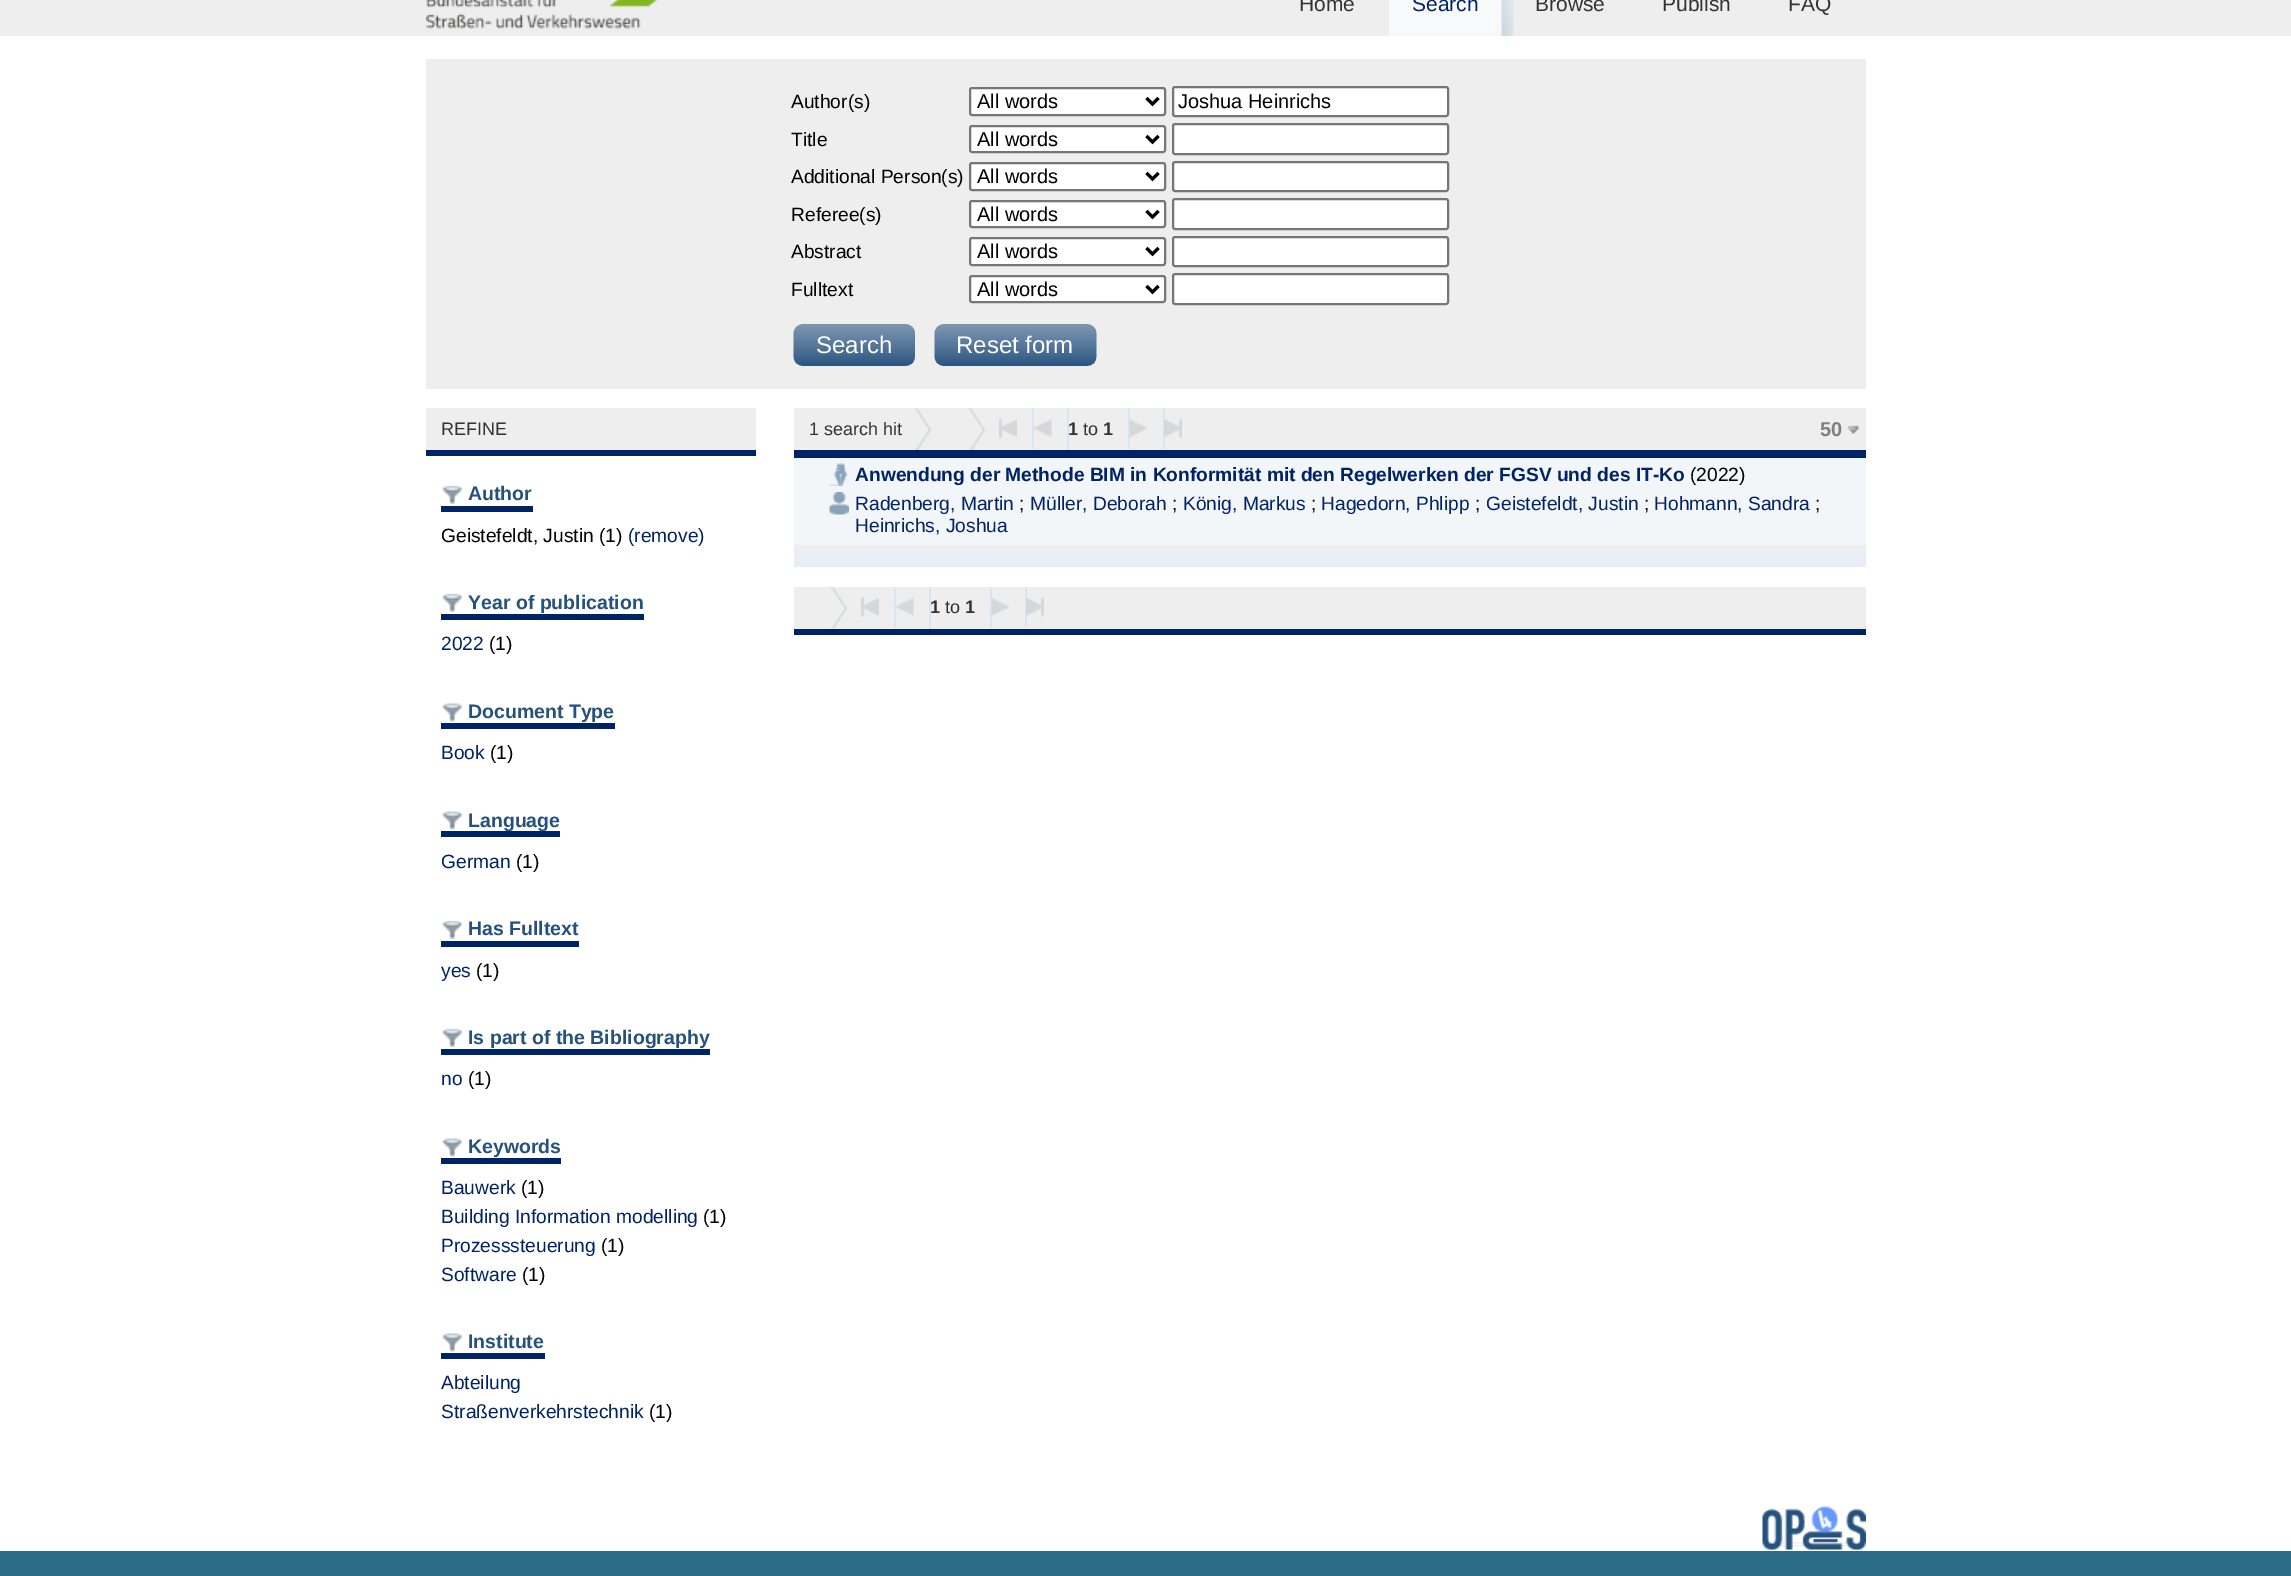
%!PS-Adobe-3.0
%%BoundingBox: 0 0 2291 1576
%%LanguageLevel: 3
%%Pages: 1
%%EndComments
%%BeginProlog
/setink { 3 { 255 div 3 1 roll } repeat setrgbcolor } def
/usefont { [ exch dup neg 0 0 3 -1 roll 0 0 ] selectfont } def
/drawtext { setink usefont moveto show } def
/fillbox { setink rectfill } def
/rrect { 5 dict begin { /r /h /w /y /x } { exch def } forall
  x r add y moveto x w add y 2 copy h add r arct x w add y h add x 1 index r arct
  x y h add x y r arct x y 2 copy exch w add exch r arct closepath end } def
/drawimage { 5 dict begin { /h /w /y /x /name } { exch def } forall
  gsave x y translate w h scale
  w h 8 [w 0 0 h 0 0] name (r) file false 3 colorimage grestore end } def
%%EndProlog
%%BeginSetup
<< /PageSize [2291 1576] >> setpagedevice
%%EndSetup
%%Page: 1 1
0 1576 translate 1 -1 scale
4 setmiterlimit
0 0 2291 1576 44 108 136 fillbox
0 0 2291 36 238 238 238 fillbox
(assets/img1.rgb) 426 0 233 29 drawimage
(Home) 1299 11 /LiberationSans-Regular 21 51 51 51 drawtext
(assets/img2.rgb) 1389 0 125 36 drawimage
(Search) 1412 11 /LiberationSans-Regular 21 0 34 102 drawtext
(Browse) 1535 11 /LiberationSans-Regular 21 51 51 51 drawtext
(Publish) 1662 11 /LiberationSans-Regular 21 51 51 51 drawtext
(FAQ) 1788 11 /LiberationSans-Regular 21 51 51 51 drawtext
0 36 2291 1515 255 255 255 fillbox
426 59 1440 330 238 238 238 fillbox
(Author\(s\)) 791 108 /LiberationSans-Regular 19.2 0 0 0 drawtext
255 255 255 setink
970 88 195 27 2 rrect gsave fill grestore
118 118 118 setink
2 setlinewidth
stroke
0 0 0 setink
3 setlinewidth
1146.5 98 moveto 1152.5 104 lineto 1158.5 98 lineto stroke
(All words) 977 108 /LiberationSans-Regular 20 0 0 0 drawtext
255 255 255 setink
1173 87 275 29 2 rrect gsave fill grestore
118 118 118 setink
2 setlinewidth
stroke
(Joshua Heinrichs) 1178 108 /LiberationSans-Regular 20 0 0 0 drawtext
(Title) 791 146 /LiberationSans-Regular 19.2 0 0 0 drawtext
255 255 255 setink
970 126 195 26 2 rrect gsave fill grestore
118 118 118 setink
stroke
0 0 0 setink
3 setlinewidth
1146.5 136 moveto 1152.5 142 lineto 1158.5 136 lineto stroke
(All words) 977 146 /LiberationSans-Regular 20 0 0 0 drawtext
255 255 255 setink
1173 124 275 30 2 rrect gsave fill grestore
118 118 118 setink
2 setlinewidth
stroke
(Additional Person\(s\)) 791 183 /LiberationSans-Regular 19.2 0 0 0 drawtext
255 255 255 setink
970 163 195 27 2 rrect gsave fill grestore
118 118 118 setink
stroke
0 0 0 setink
3 setlinewidth
1146.5 173 moveto 1152.5 179 lineto 1158.5 173 lineto stroke
(All words) 977 183 /LiberationSans-Regular 20 0 0 0 drawtext
255 255 255 setink
1173 162 275 29 2 rrect gsave fill grestore
118 118 118 setink
2 setlinewidth
stroke
(Referee\(s\)) 791 221 /LiberationSans-Regular 19.2 0 0 0 drawtext
255 255 255 setink
970 201 195 26 2 rrect gsave fill grestore
118 118 118 setink
stroke
0 0 0 setink
3 setlinewidth
1146.5 211 moveto 1152.5 217 lineto 1158.5 211 lineto stroke
(All words) 977 221 /LiberationSans-Regular 20 0 0 0 drawtext
255 255 255 setink
1173 199 275 30 2 rrect gsave fill grestore
118 118 118 setink
2 setlinewidth
stroke
(Abstract) 791 258 /LiberationSans-Regular 19.2 0 0 0 drawtext
255 255 255 setink
970 238 195 27 2 rrect gsave fill grestore
118 118 118 setink
stroke
0 0 0 setink
3 setlinewidth
1146.5 248 moveto 1152.5 254 lineto 1158.5 248 lineto stroke
(All words) 977 258 /LiberationSans-Regular 20 0 0 0 drawtext
255 255 255 setink
1173 237 275 29 2 rrect gsave fill grestore
118 118 118 setink
2 setlinewidth
stroke
(Fulltext) 791 296 /LiberationSans-Regular 19.2 0 0 0 drawtext
255 255 255 setink
970 276 195 26 2 rrect gsave fill grestore
118 118 118 setink
stroke
0 0 0 setink
3 setlinewidth
1146.5 286 moveto 1152.5 292 lineto 1158.5 286 lineto stroke
(All words) 977 296 /LiberationSans-Regular 20 0 0 0 drawtext
255 255 255 setink
1173 274 275 30 2 rrect gsave fill grestore
118 118 118 setink
2 setlinewidth
stroke
(assets/img3.rgb) 793 324 122 42 drawimage
(Search) 816 353 /LiberationSans-Regular 24 255 255 255 drawtext
(assets/img4.rgb) 934 324 163 42 drawimage
(Reset form) 956 353 /LiberationSans-Regular 24 255 255 255 drawtext
426 408 330 42 238 238 238 fillbox
426 450 330 6 0 34 102 fillbox
(REFINE) 441 435 /LiberationSans-Regular 18 51 51 51 drawtext
(assets/img5.rgb) 442 485 21 19 drawimage
441 506 92 6 0 34 102 fillbox
(Author) 468 500 /LiberationSans-Bold 19.5 38 81 125 drawtext
(Geistefeldt, Justin \(1\)) 441 542 /LiberationSans-Regular 19.2 0 0 0 drawtext
(\(remove\)) 628 542 /LiberationSans-Regular 19.2 0 34 102 drawtext
(assets/img5.rgb) 442 593 21 19 drawimage
441 614 203 6 0 34 102 fillbox
(Year of publication) 468 609 /LiberationSans-Bold 19.5 38 81 125 drawtext
(2022) 441 650 /LiberationSans-Regular 19.2 0 34 102 drawtext
(\(1\)) 489 650 /LiberationSans-Regular 19.2 0 0 0 drawtext
(assets/img6.rgb) 442 703 21 19 drawimage
441 723 174 6 0 34 102 fillbox
(Document Type) 468 718 /LiberationSans-Bold 19.5 38 81 125 drawtext
(Book) 441 759 /LiberationSans-Regular 19.2 0 34 102 drawtext
(\(1\)) 490 759 /LiberationSans-Regular 19.2 0 0 0 drawtext
(assets/img6.rgb) 442 811 21 19 drawimage
441 831 119 6 0 34 102 fillbox
(Language) 468 827 /LiberationSans-Bold 19.5 38 81 125 drawtext
(German) 441 868 /LiberationSans-Regular 19.2 0 34 102 drawtext
(\(1\)) 516 868 /LiberationSans-Regular 19.2 0 0 0 drawtext
(assets/img5.rgb) 442 920 21 19 drawimage
441 941 138 6 0 34 102 fillbox
(Has Fulltext) 468 935 /LiberationSans-Bold 19.5 38 81 125 drawtext
(yes) 441 977 /LiberationSans-Regular 19.2 0 34 102 drawtext
(\(1\)) 476 977 /LiberationSans-Regular 19.2 0 0 0 drawtext
(assets/img5.rgb) 442 1028 21 19 drawimage
441 1049 269 6 0 34 102 fillbox
(Is part of the Bibliography) 468 1044 /LiberationSans-Bold 19.5 38 81 125 drawtext
(no) 441 1085 /LiberationSans-Regular 19.2 0 34 102 drawtext
(\(1\)) 468 1085 /LiberationSans-Regular 19.2 0 0 0 drawtext
(assets/img6.rgb) 442 1138 21 19 drawimage
441 1158 120 6 0 34 102 fillbox
(Keywords) 468 1153 /LiberationSans-Bold 19.5 38 81 125 drawtext
(Bauwerk) 441 1194 /LiberationSans-Regular 19.2 0 34 102 drawtext
(\(1\)) 521 1194 /LiberationSans-Regular 19.2 0 0 0 drawtext
(Building Information modelling) 441 1223 /LiberationSans-Regular 19.2 0 34 102 drawtext
(\(1\)) 703 1223 /LiberationSans-Regular 19.2 0 0 0 drawtext
(Prozesssteuerung) 441 1252 /LiberationSans-Regular 19.2 0 34 102 drawtext
(\(1\)) 601 1252 /LiberationSans-Regular 19.2 0 0 0 drawtext
(Software) 441 1281 /LiberationSans-Regular 19.2 0 34 102 drawtext
(\(1\)) 522 1281 /LiberationSans-Regular 19.2 0 0 0 drawtext
(assets/img6.rgb) 442 1333 21 19 drawimage
441 1353 104 6 0 34 102 fillbox
(Institute) 468 1348 /LiberationSans-Bold 19.5 38 81 125 drawtext
(Abteilung) 441 1389 /LiberationSans-Regular 19.2 0 34 102 drawtext
(Straßenverkehrstechnik) 441 1418 /LiberationSans-Regular 19.2 0 34 102 drawtext
(\(1\)) 649 1418 /LiberationSans-Regular 19.2 0 0 0 drawtext
794 408 1072 42 238 238 238 fillbox
794 450 1072 8 0 34 102 fillbox
(assets/img7.rgb) 914 408 18 42 drawimage
(1 search hit) 809 435 /LiberationSans-Regular 18 51 51 51 drawtext
(assets/img7.rgb) 968 408 18 42 drawimage
(assets/img8.rgb) 999 418 18 20 drawimage
1032 408 2 41 218 229 243 fillbox
(assets/img9.rgb) 1033 419 19 19 drawimage
1067 408 2 42 218 229 243 fillbox
(1) 1068 435 /LiberationSans-Bold 18 51 51 51 drawtext
(to) 1083 435 /LiberationSans-Regular 18 51 51 51 drawtext
(1) 1103 435 /LiberationSans-Bold 18 51 51 51 drawtext
1128 408 2 41 218 229 243 fillbox
(assets/img10.rgb) 1129 419 19 19 drawimage
1163 408 2 41 218 229 243 fillbox
(assets/img11.rgb) 1164 418 18 20 drawimage
(assets/img12.rgb) 1847 425 12 9 drawimage
(50) 1820 436 /LiberationSans-Bold 20 128 128 128 drawtext
794 545 1072 7 238 238 238 fillbox
794 458 1072 87 243 246 248 fillbox
(assets/img13.rgb) 829 463 19 23 drawimage
(Anwendung der Methode BIM in Konformität mit den Regelwerken der FGSV und des IT-Ko) 855 481 /LiberationSans-Bold 19.2 0 34 102 drawtext
(\(2022\)) 1690 481 /LiberationSans-Regular 19.2 0 0 0 drawtext
(assets/img14.rgb) 829 492 20 23 drawimage
(Radenberg, Martin) 855 510 /LiberationSans-Regular 19.2 0 34 102 drawtext
(;) 1019 510 /LiberationSans-Regular 19.2 0 0 0 drawtext
(Müller, Deborah) 1030 510 /LiberationSans-Regular 19.2 0 34 102 drawtext
(;) 1172 510 /LiberationSans-Regular 19.2 0 0 0 drawtext
(König, Markus) 1183 510 /LiberationSans-Regular 19.2 0 34 102 drawtext
(;) 1311 510 /LiberationSans-Regular 19.2 0 0 0 drawtext
(Hagedorn, Phlipp) 1321 510 /LiberationSans-Regular 19.2 0 34 102 drawtext
(;) 1475 510 /LiberationSans-Regular 19.2 0 0 0 drawtext
(Geistefeldt, Justin) 1486 510 /LiberationSans-Regular 19.2 0 34 102 drawtext
(;) 1644 510 /LiberationSans-Regular 19.2 0 0 0 drawtext
(Hohmann, Sandra) 1654 510 /LiberationSans-Regular 19.2 0 34 102 drawtext
(;) 1815 510 /LiberationSans-Regular 19.2 0 0 0 drawtext
(Heinrichs, Joshua) 855 532 /LiberationSans-Regular 19.2 0 34 102 drawtext
794 552 1072 15 232 238 247 fillbox
794 587 1072 42 238 238 238 fillbox
794 629 1072 6 0 34 102 fillbox
(assets/img15.rgb) 830 586 18 43 drawimage
(assets/img16.rgb) 861 597 18 20 drawimage
894 587 2 40 218 229 243 fillbox
(assets/img17.rgb) 895 597 19 19 drawimage
929 587 2 42 218 229 243 fillbox
(1) 930 613 /LiberationSans-Bold 18 51 51 51 drawtext
(to) 945 613 /LiberationSans-Regular 18 51 51 51 drawtext
(1) 965 613 /LiberationSans-Bold 18 51 51 51 drawtext
990 587 2 40 218 229 243 fillbox
(assets/img18.rgb) 991 597 19 19 drawimage
1025 587 2 40 218 229 243 fillbox
(assets/img19.rgb) 1026 597 18 20 drawimage
(assets/img20.rgb) 1762 1506 104 44 drawimage
showpage
%%EOF
